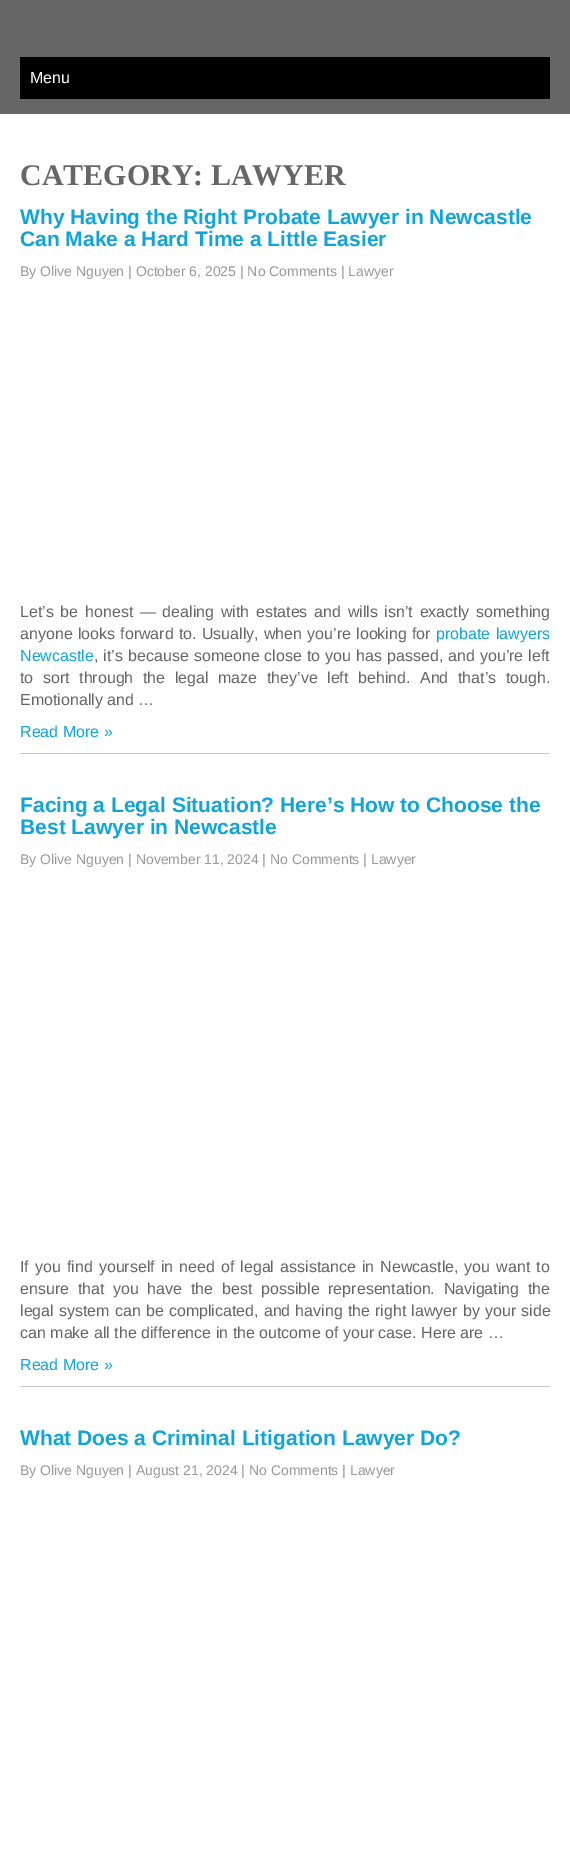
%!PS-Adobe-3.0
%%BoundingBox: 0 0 570 1852
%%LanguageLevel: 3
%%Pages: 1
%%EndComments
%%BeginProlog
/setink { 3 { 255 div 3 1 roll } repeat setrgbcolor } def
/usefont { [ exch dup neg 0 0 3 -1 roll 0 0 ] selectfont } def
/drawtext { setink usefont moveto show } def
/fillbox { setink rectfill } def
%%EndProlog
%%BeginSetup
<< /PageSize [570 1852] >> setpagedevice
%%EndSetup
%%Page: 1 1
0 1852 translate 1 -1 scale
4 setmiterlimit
0 0 570 1852 255 255 255 fillbox
0 0 570 114 102 102 102 fillbox
20 57 530 42 0 0 0 fillbox
(Menu) 30 83 /LiberationSans-Regular 16 255 255 255 drawtext
(CATEGORY: LAWYER) 20 185 /LiberationSerif-Bold 30 102 102 102 drawtext
20 753 530 1 204 204 204 fillbox
(Why Having the Right Probate Lawyer in Newcastle) 20 224 /LiberationSans-Bold 21 15 165 217 drawtext
(Can Make a Hard Time a Little Easier) 20 246 /LiberationSans-Bold 21 15 165 217 drawtext
(By Olive Nguyen | October 6, 2025 | No Comments | Lawyer) 20 276 /LiberationSans-Regular 14 153 153 153 drawtext
/LiberationSans-Regular 16 usefont
102 102 102 setink
20 617 moveto 2.25 0 32 (Let’s be honest — dealing with estates and wills isn’t exactly something) widthshow
20 639 moveto 0.75 0 32 (anyone looks forward to. Usually, when you’re looking for) widthshow
15 165 217 setink
436 639 moveto 1 0 32 (probate lawyers) widthshow
(Newcastle) 20 661 /LiberationSans-Regular 16 15 165 217 drawtext
102 102 102 setink
94 661 moveto 0.6 0 32 (, it’s because someone close to you has passed, and you’re left) widthshow
20 683 moveto 5.1 0 32 (to sort through the legal maze they’ve left behind. And that’s tough.) widthshow
(Emotionally and …) 20 705 /LiberationSans-Regular 16 102 102 102 drawtext
(Read More ») 20 737 /LiberationSans-Regular 16 15 165 217 drawtext
20 1386 530 1 204 204 204 fillbox
(Facing a Legal Situation? Here’s How to Choose the) 20 812 /LiberationSans-Bold 21 15 165 217 drawtext
(Best Lawyer in Newcastle) 20 834 /LiberationSans-Bold 21 15 165 217 drawtext
(By Olive Nguyen | November 11, 2024 | No Comments | Lawyer) 20 864 /LiberationSans-Regular 14 153 153 153 drawtext
/LiberationSans-Regular 16 usefont
102 102 102 setink
20 1272 moveto 1.6 0 32 (If you find yourself in need of legal assistance in Newcastle, you want to) widthshow
20 1294 moveto 4.25 0 32 (ensure that you have the best possible representation. Navigating the) widthshow
20 1316 moveto 0.7 0 32 (legal system can be complicated, and having the right lawyer by your side) widthshow
(can make all the difference in the outcome of your case. Here are …) 20 1338 /LiberationSans-Regular 16 102 102 102 drawtext
(Read More ») 20 1370 /LiberationSans-Regular 16 15 165 217 drawtext
(What Does a Criminal Litigation Lawyer Do?) 20 1445 /LiberationSans-Bold 21 15 165 217 drawtext
(By Olive Nguyen | August 21, 2024 | No Comments | Lawyer) 20 1475 /LiberationSans-Regular 14 153 153 153 drawtext
showpage
%%EOF
